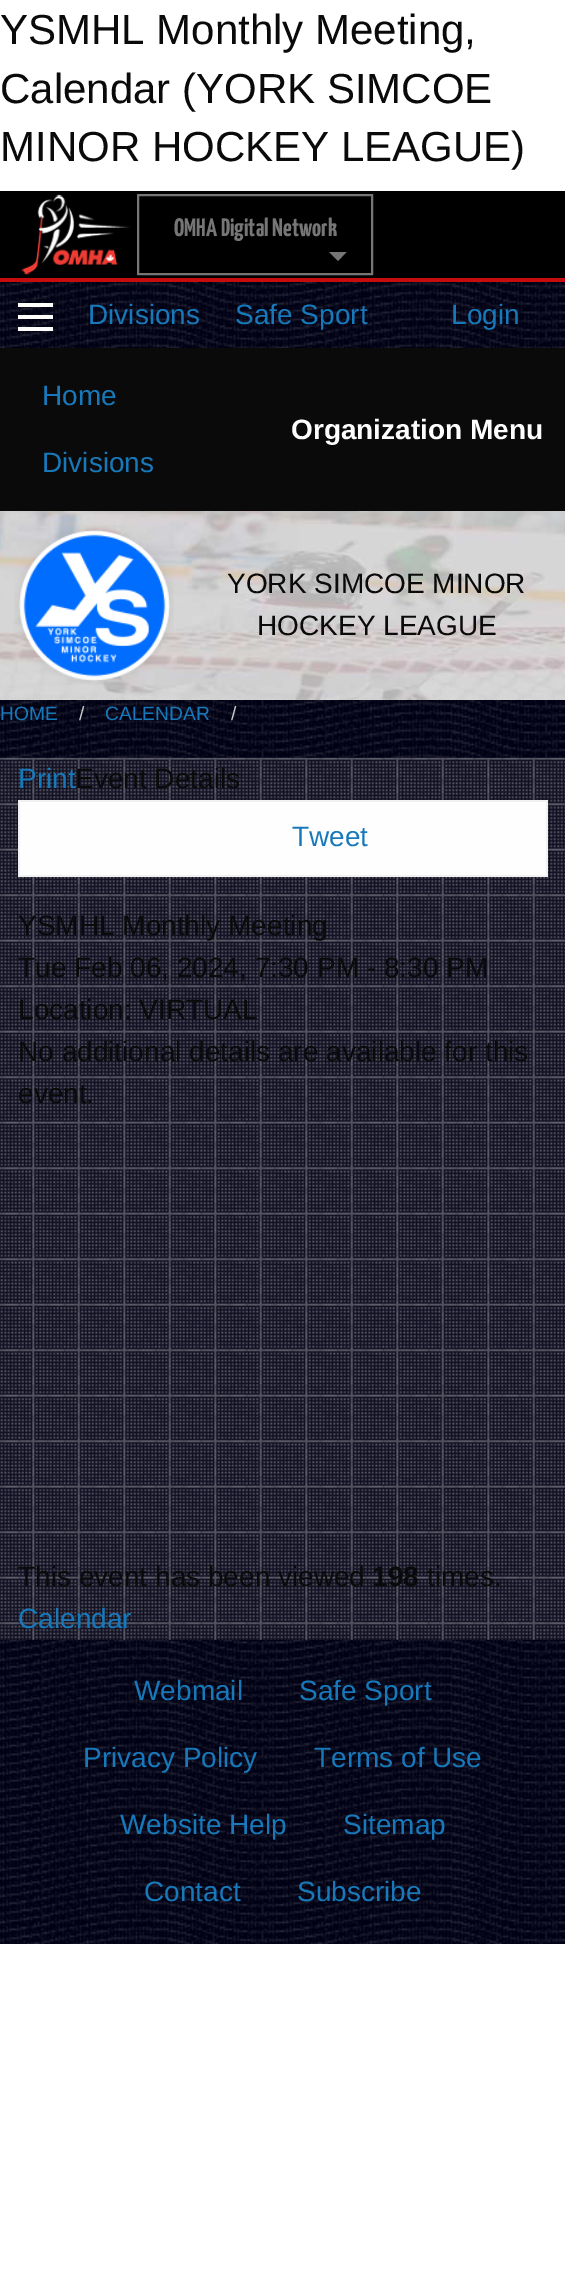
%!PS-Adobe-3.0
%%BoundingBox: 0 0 565 2271
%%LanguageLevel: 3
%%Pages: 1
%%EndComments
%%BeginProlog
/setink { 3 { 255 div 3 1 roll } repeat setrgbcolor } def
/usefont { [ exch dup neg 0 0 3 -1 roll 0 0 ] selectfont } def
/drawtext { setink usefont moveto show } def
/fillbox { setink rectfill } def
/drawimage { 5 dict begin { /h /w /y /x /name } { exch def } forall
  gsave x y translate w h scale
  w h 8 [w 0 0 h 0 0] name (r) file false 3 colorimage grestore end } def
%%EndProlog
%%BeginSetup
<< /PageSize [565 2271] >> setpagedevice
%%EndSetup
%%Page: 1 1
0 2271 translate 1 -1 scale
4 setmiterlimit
0 0 565 2271 255 255 255 fillbox
(YSMHL Monthly Meeting,) 0 44 /LiberationSans-Regular 42 10 10 10 drawtext
(Calendar \(YORK SIMCOE) 0 103 /LiberationSans-Regular 42 10 10 10 drawtext
(MINOR HOCKEY LEAGUE\)) 0 161 /LiberationSans-Regular 42 10 10 10 drawtext
0 191 565 87 0 0 0 fillbox
0 278 565 4 198 12 12 fillbox
(assets/img1.rgb) 21 194 110 81 drawimage
118 118 118 setink
2 setlinewidth
138 195 234 79 rectstroke
(OMHA Digital Network) 174 236 /YanoneKaffeesatz-ExtraLight 25.25 118 118 118 drawtext
329 252 moveto 346.5 252 lineto 338 261 lineto closepath fill
0 282 565 1662 0 0 20 fillbox
(assets/img2.rgb) 0 282 565 1662 drawimage
18 327 35 4 254 254 254 fillbox
18 315 35 4 254 254 254 fillbox
18 303 35 4 254 254 254 fillbox
(Divisions) 88 324 /LiberationSans-Regular 28 23 121 186 drawtext
(Safe Sport) 235 324 /LiberationSans-Regular 28 23 121 186 drawtext
(Login) 451 324 /LiberationSans-Regular 28 23 121 186 drawtext
0 348 565 163 10 10 10 fillbox
(Home) 42 405 /LiberationSans-Regular 28 23 121 186 drawtext
(Divisions) 42 472 /LiberationSans-Regular 28 23 121 186 drawtext
(Organization Menu) 291 439 /LiberationSans-Bold 28 254 254 254 drawtext
(assets/img3.rgb) 0 511 565 189 drawimage
(assets/img4.rgb) 14 525 160 160 drawimage
(YORK SIMCOE MINOR) 227 593 /LiberationSans-Regular 28 10 10 10 drawtext
(HOCKEY LEAGUE) 257 635 /LiberationSans-Regular 28 10 10 10 drawtext
(HOME) 0 720 /LiberationSans-Regular 19.25 23 121 186 drawtext
(/) 79 720 /LiberationSans-Regular 19.25 202 202 202 drawtext
(CALENDAR) 105 720 /LiberationSans-Regular 19.25 23 121 186 drawtext
(/) 231 720 /LiberationSans-Regular 19.25 202 202 202 drawtext
0 758 565 882 0 0 20 fillbox
(assets/img5.rgb) 0 757 565 883 drawimage
(Print) 18 788 /LiberationSans-Regular 28 23 121 186 drawtext
(Event Details) 75 788 /LiberationSans-Regular 28 10 10 10 drawtext
20 802 526 73 254 254 254 fillbox
18 800 530 2 241 241 241 fillbox
546 800 2 77 241 241 241 fillbox
18 875 530 2 241 241 241 fillbox
18 800 2 77 241 241 241 fillbox
(Tweet) 292 846 /LiberationSans-Regular 28 23 121 186 drawtext
(YSMHL Monthly Meeting) 18 935 /LiberationSans-Regular 28 10 10 10 drawtext
(Tue Feb 06, 2024, 7:30 PM - 8:30 PM) 18 977 /LiberationSans-Regular 28 10 10 10 drawtext
(Location: VIRTUAL) 18 1019 /LiberationSans-Regular 28 10 10 10 drawtext
(No additional details are available for this) 18 1061 /LiberationSans-Regular 28 10 10 10 drawtext
(event.) 18 1103 /LiberationSans-Regular 28 10 10 10 drawtext
(This event has been viewed) 18 1586 /LiberationSans-Regular 28 10 10 10 drawtext
(198) 372 1586 /LiberationSans-Bold 28 10 10 10 drawtext
(times.) 427 1586 /LiberationSans-Regular 28 10 10 10 drawtext
(Calendar) 18 1628 /LiberationSans-Regular 28 23 121 186 drawtext
(Webmail) 134 1700 /LiberationSans-Regular 28 23 121 186 drawtext
(Safe Sport) 299 1700 /LiberationSans-Regular 28 23 121 186 drawtext
(Privacy Policy) 83 1767 /LiberationSans-Regular 28 23 121 186 drawtext
(Terms of Use) 314 1767 /LiberationSans-Regular 28 23 121 186 drawtext
(Website Help) 120 1834 /LiberationSans-Regular 28 23 121 186 drawtext
(Sitemap) 343 1834 /LiberationSans-Regular 28 23 121 186 drawtext
(Contact) 144 1901 /LiberationSans-Regular 28 23 121 186 drawtext
(Subscribe) 297 1901 /LiberationSans-Regular 28 23 121 186 drawtext
showpage
%%EOF
